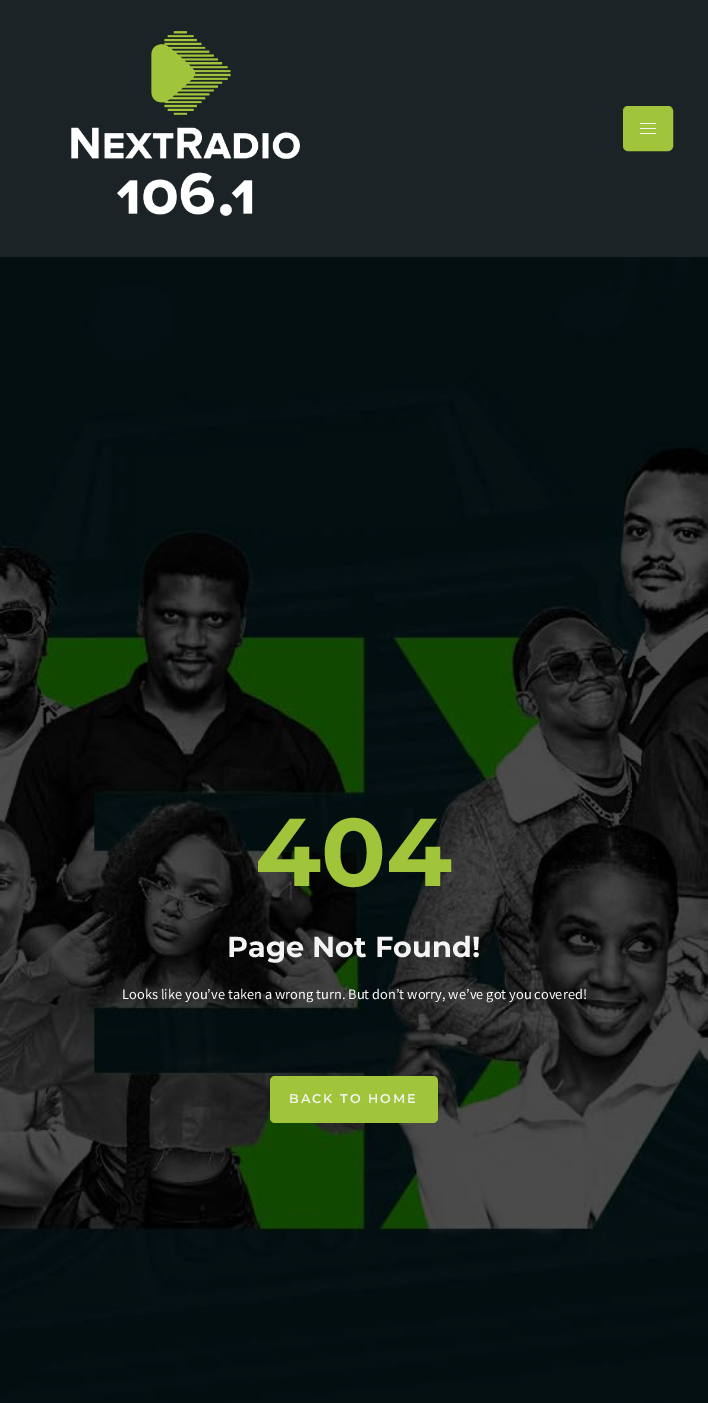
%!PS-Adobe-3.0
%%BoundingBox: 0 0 708 1403
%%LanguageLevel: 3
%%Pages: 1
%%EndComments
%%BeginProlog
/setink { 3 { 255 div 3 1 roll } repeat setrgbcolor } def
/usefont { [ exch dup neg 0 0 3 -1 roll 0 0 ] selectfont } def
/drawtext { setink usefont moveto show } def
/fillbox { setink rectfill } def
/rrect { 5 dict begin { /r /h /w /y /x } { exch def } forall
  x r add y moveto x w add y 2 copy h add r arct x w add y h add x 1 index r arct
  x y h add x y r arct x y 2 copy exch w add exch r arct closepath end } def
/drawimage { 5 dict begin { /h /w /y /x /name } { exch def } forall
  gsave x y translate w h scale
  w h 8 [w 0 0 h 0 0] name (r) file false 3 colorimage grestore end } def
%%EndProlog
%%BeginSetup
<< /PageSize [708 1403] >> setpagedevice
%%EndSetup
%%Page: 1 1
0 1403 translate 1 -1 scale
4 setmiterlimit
0 0 708 1403 28 35 38 fillbox
(assets/img1.rgb) 71 31 229 185 drawimage
161 197 58 setink
624 107 48 43 4 rrect gsave fill grestore
2 setlinewidth
stroke
640 123 16 1 244 244 244 fillbox
640 128 16 1 244 244 244 fillbox
640 133 16 1 244 244 244 fillbox
(assets/img2.rgb) 0 257 708 1146 drawimage
(404) 255 886 /Montserrat-Bold 96 161 197 58 drawtext
(Page Not Found!) 227 957 /Montserrat-Bold 28.75 244 244 244 drawtext
(Looks like you’ve taken a wrong turn. But don’t worry, we’ve got you covered!) 122 999 /SourceSansPro-Regular 14.4 255 255 255 drawtext
161 197 58 setink
270 1076 168 47 5 rrect fill
/Montserrat-SemiBold 12.75 usefont
244 244 244 setink
289 1103 moveto 2 0 (BACK TO HOME) ashow
showpage
%%EOF
